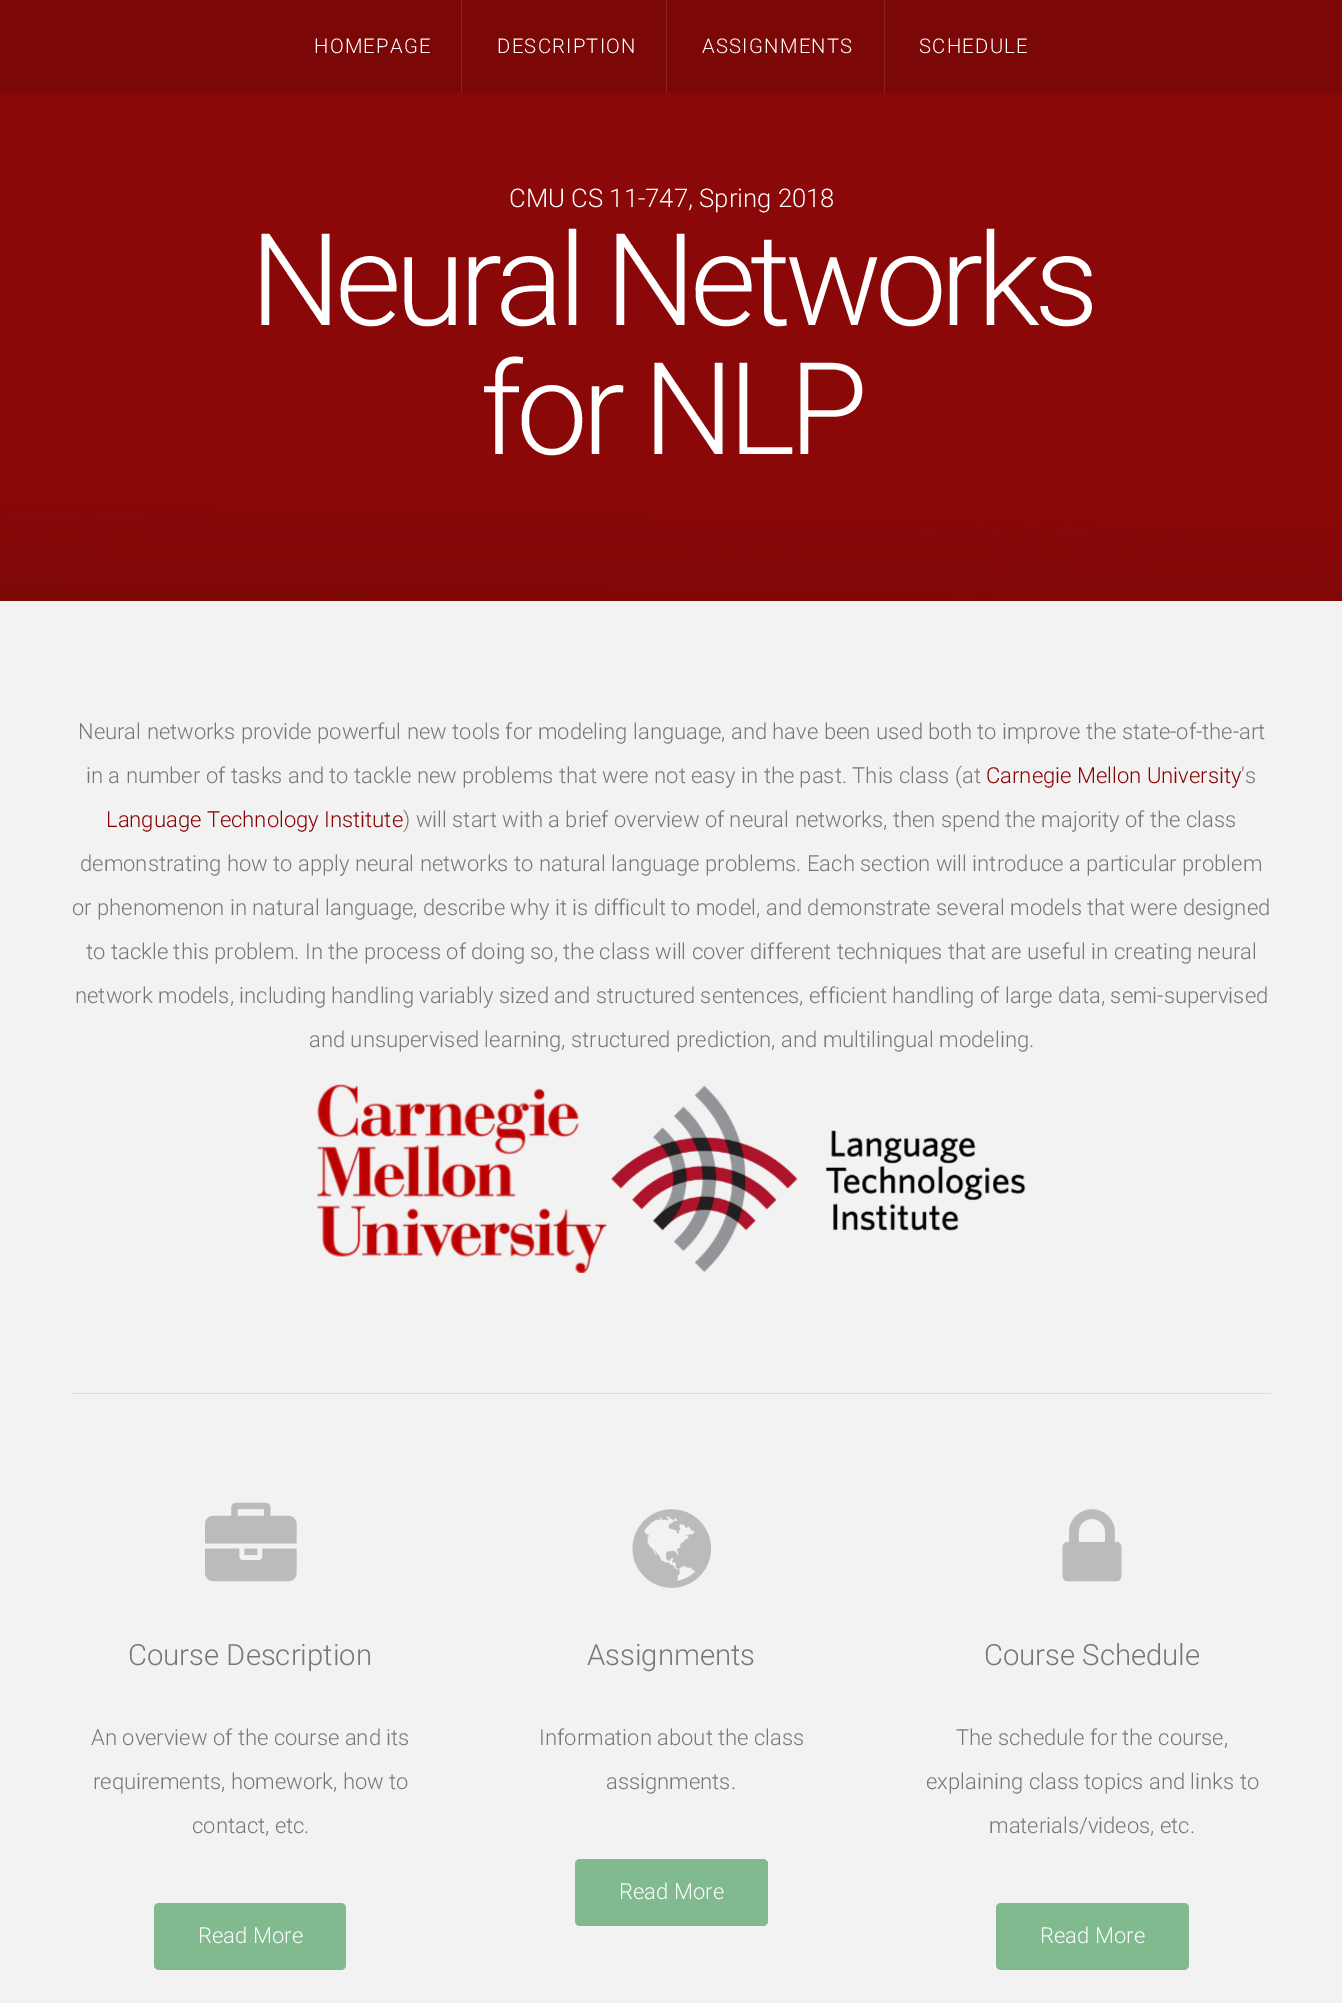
%!PS-Adobe-3.0
%%BoundingBox: 0 0 1342 2003
%%LanguageLevel: 3
%%Pages: 1
%%EndComments
%%BeginProlog
/setink { 3 { 255 div 3 1 roll } repeat setrgbcolor } def
/usefont { [ exch dup neg 0 0 3 -1 roll 0 0 ] selectfont } def
/drawtext { setink usefont moveto show } def
/fillbox { setink rectfill } def
/rrect { 5 dict begin { /r /h /w /y /x } { exch def } forall
  x r add y moveto x w add y 2 copy h add r arct x w add y h add x 1 index r arct
  x y h add x y r arct x y 2 copy exch w add exch r arct closepath end } def
/drawimage { 5 dict begin { /h /w /y /x /name } { exch def } forall
  gsave x y translate w h scale
  w h 8 [w 0 0 h 0 0] name (r) file false 3 colorimage grestore end } def
%%EndProlog
%%BeginSetup
<< /PageSize [1342 2003] >> setpagedevice
%%EndSetup
%%Page: 1 1
0 2003 translate 1 -1 scale
4 setmiterlimit
0 0 1342 2003 255 255 255 fillbox
(assets/img1.rgb) 0 93 1342 508 drawimage
0 0 1342 93 124 7 7 fillbox
461 0 1 93 137 32 32 fillbox
/Roboto-Light 20.25 usefont
255 255 255 setink
314 53 moveto 1.25 0 (HOMEPAGE) ashow
666 0 1 93 137 32 32 fillbox
255 255 255 setink
497 53 moveto 1.25 0 (DESCRIPTION) ashow
884 0 1 93 137 32 32 fillbox
255 255 255 setink
702 53 moveto 1.25 0 (ASSIGNMENTS) ashow
919 53 moveto 1.25 0 (SCHEDULE) ashow
(CMU CS 11-747, Spring 2018) 509 207 /Roboto-Light 25.7 255 255 255 drawtext
/Roboto-Light 128.25 usefont
250 325 moveto -6.4 0 (Neural Networks) ashow
480 454 moveto -6.4 0 (for NLP) ashow
0 601 1342 1402 242 242 242 fillbox
(Neural networks provide powerful new tools for modeling language, and have been used both to improve the state-of-the-art) 78 739 /Roboto-Light 22 119 119 119 drawtext
(in a number of tasks and to tackle new problems that were not easy in the past. This class \(at) 86 783 /Roboto-Light 22 119 119 119 drawtext
(Carnegie Mellon University) 986 783 /Roboto-Light 22 136 0 0 drawtext
('s) 1241 783 /Roboto-Light 22 119 119 119 drawtext
(Language Technology Institute) 106 827 /Roboto-Light 22 136 0 0 drawtext
(\) will start with a brief overview of neural networks, then spend the majority of the class) 403 827 /Roboto-Light 22 119 119 119 drawtext
(demonstrating how to apply neural networks to natural language problems. Each section will introduce a particular problem) 80 871 /Roboto-Light 22 119 119 119 drawtext
(or phenomenon in natural language, describe why it is difficult to model, and demonstrate several models that were designed) 72 915 /Roboto-Light 22 119 119 119 drawtext
(to tackle this problem. In the process of doing so, the class will cover different techniques that are useful in creating neural) 86 959 /Roboto-Light 22 119 119 119 drawtext
(network models, including handling variably sized and structured sentences, efficient handling of large data, semi-supervised) 75 1003 /Roboto-Light 22 119 119 119 drawtext
(and unsupervised learning, structured prediction, and multilingual modeling.) 309 1047 /Roboto-Light 22 119 119 119 drawtext
(assets/img2.rgb) 317 1084 290 189 drawimage
(assets/img3.rgb) 611 1085 415 187 drawimage
71 1393 1200 1 221 221 221 fillbox
(assets/img4.rgb) 205 1502 92 80 drawimage
(Course Description) 128 1665 /Roboto-Light 29.25 119 119 119 drawtext
(An overview of the course and its) 91 1745 /Roboto-Light 22 119 119 119 drawtext
(requirements, homework, how to) 93 1789 /Roboto-Light 22 119 119 119 drawtext
(contact, etc.) 192 1833 /Roboto-Light 22 119 119 119 drawtext
128 186 142 setink
154 1903 192 67 5 rrect fill
(Read More) 198 1943 /Roboto-Light 22 255 255 255 drawtext
(assets/img5.rgb) 632 1509 79 79 drawimage
(Assignments) 587 1665 /Roboto-Light 29.25 119 119 119 drawtext
(Information about the class) 539 1745 /Roboto-Light 22 119 119 119 drawtext
(assignments.) 606 1789 /Roboto-Light 22 119 119 119 drawtext
128 186 142 setink
575 1859 193 67 5 rrect fill
(Read More) 619 1899 /Roboto-Light 22 255 255 255 drawtext
(assets/img6.rgb) 1062 1509 60 73 drawimage
(Course Schedule) 984 1665 /Roboto-Light 29.25 119 119 119 drawtext
(The schedule for the course,) 956 1745 /Roboto-Light 22 119 119 119 drawtext
(explaining class topics and links to) 926 1789 /Roboto-Light 22 119 119 119 drawtext
(materials/videos, etc.) 989 1833 /Roboto-Light 22 119 119 119 drawtext
128 186 142 setink
996 1903 193 67 5 rrect fill
(Read More) 1040 1943 /Roboto-Light 22 255 255 255 drawtext
showpage
%%EOF
